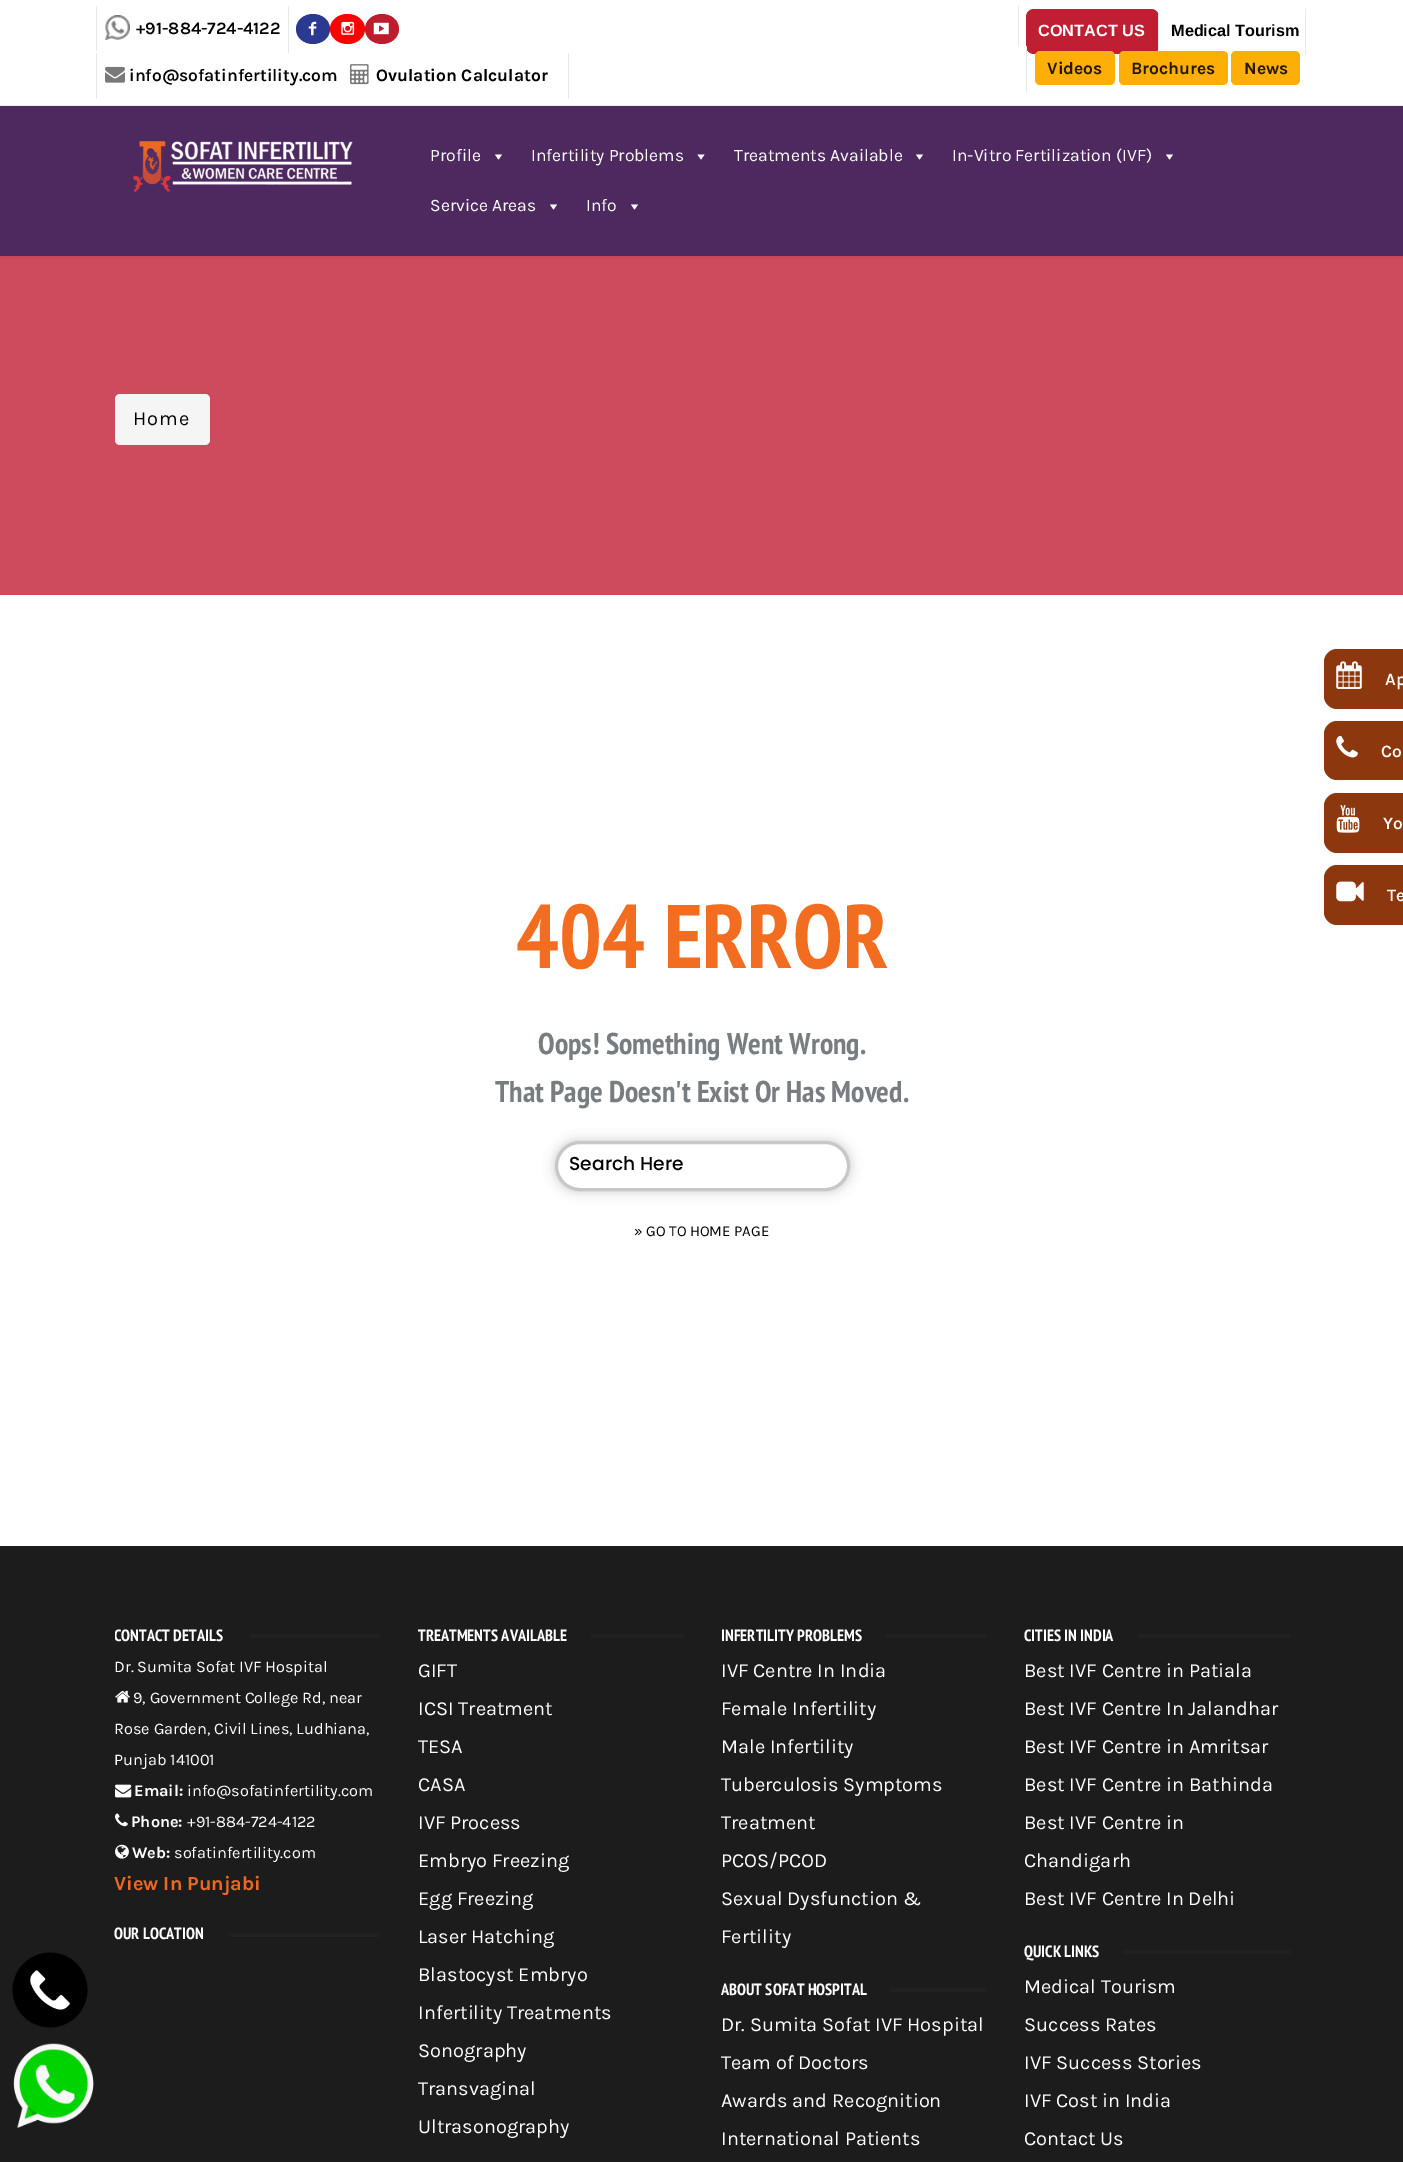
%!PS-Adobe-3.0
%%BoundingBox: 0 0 1403 2162
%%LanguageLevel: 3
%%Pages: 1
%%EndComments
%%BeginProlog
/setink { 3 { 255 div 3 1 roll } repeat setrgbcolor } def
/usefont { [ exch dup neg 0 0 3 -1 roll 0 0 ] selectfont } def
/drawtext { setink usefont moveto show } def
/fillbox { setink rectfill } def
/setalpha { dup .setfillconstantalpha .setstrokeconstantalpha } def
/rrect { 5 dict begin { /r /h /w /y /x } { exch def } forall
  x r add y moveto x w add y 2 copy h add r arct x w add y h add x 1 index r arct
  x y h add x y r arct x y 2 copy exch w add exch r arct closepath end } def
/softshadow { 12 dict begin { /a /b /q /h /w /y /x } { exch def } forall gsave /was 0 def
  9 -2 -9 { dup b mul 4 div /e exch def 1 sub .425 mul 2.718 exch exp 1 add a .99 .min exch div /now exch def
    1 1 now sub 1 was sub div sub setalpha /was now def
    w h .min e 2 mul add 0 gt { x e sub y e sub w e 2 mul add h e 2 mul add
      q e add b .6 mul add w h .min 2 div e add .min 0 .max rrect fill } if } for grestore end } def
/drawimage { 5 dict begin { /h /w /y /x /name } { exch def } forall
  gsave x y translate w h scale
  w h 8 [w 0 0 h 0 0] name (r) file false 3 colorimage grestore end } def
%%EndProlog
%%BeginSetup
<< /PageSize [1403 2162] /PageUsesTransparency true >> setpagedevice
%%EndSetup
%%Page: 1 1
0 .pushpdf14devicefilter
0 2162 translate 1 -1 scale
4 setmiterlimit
0 0 1403 2162 255 255 255 fillbox
0 0 0 setink
0 108 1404 150 0 1 0.1 softshadow
0 105 1403 1 237 237 237 fillbox
96 6 1 45 232 232 232 fillbox
(assets/img1.rgb) 105 15 25 25 drawimage
(+91-884-724-4122) 136 34 /Karla-SemiBold 17.5 0 0 0 drawtext
288 6 1 47 232 232 232 fillbox
43 57 144 setink
313 14 moveto 322.5 14 330 20.5 330 29 curveto 330 37.5 322.5 44 313 44 curveto 303.5 44 296 37.5 296 29 curveto 296 20.5 303.5 14 313 14 curveto closepath fill
(assets/img2.rgb) 308 21 9 15 drawimage
255 0 0 setink
347.5 14 moveto 357 14 365 20.5 365 29 curveto 365 37.5 357 44 347.5 44 curveto 338 44 330 37.5 330 29 curveto 330 20.5 338 14 347.5 14 curveto closepath fill
(assets/img3.rgb) 341 21 14 14 drawimage
189 29 44 setink
382 14 moveto 391.5 14 399 20.5 399 29 curveto 399 37.5 391.5 44 382 44 curveto 372.5 44 365 37.5 365 29 curveto 365 20.5 372.5 14 382 14 curveto closepath fill
(assets/img4.rgb) 373 22 16 13 drawimage
568 53 1 46 232 232 232 fillbox
96 53 1 46 232 232 232 fillbox
(assets/img5.rgb) 105 66 20 17 drawimage
(info@sofatinfertility.com) 129 81 /Karla-SemiBold 17.5 0 0 0 drawtext
(assets/img6.rgb) 350 64 19 21 drawimage
(Ovulation Calculator) 376 81 /Karla-Bold 17.5 0 0 0 drawtext
1018 6 1 40 232 232 232 fillbox
192 30 51 setink
1026 9 133 45 8 rrect fill
1158 13 1 37 232 232 232 fillbox
(CONTACT US) 1038 36 /LiberationSans-Bold 16.25 255 255 255 drawtext
1305 9 1 45 232 232 232 fillbox
(Medical Tourism) 1171 36 /LiberationSans-Bold 16.25 0 0 0 drawtext
1026 46 1 47 232 232 232 fillbox
253 175 7 setink
1035 51 80 34 5 rrect fill
(Videos) 1047 74 /Karla-Bold 17.5 38 23 0 drawtext
253 175 7 setink
1119 51 109 34 5 rrect fill
(Brochures) 1131 74 /Karla-Bold 17.5 38 23 0 drawtext
253 175 7 setink
1231 51 69 34 5 rrect fill
(News) 1244 74 /Karla-Bold 17.5 38 23 0 drawtext
0 106 1403 150 78 41 95 fillbox
(assets/img7.rgb) 133 141 220 52 drawimage
(Profile) 430 161 /Karla-Regular 17.5 255 255 255 drawtext
502 154.5 moveto 498.5 159.5 lineto 495 154.5 lineto closepath fill
(Infertility Problems) 531 161 /Karla-Regular 17.5 255 255 255 drawtext
704.5 154.5 moveto 701 159.5 lineto 697.5 154.5 lineto closepath fill
(Treatments Available) 734 161 /Karla-Regular 17.5 255 255 255 drawtext
923 154.5 moveto 919.5 159.5 lineto 916 154.5 lineto closepath fill
(In-Vitro Fertilization \(IVF\)) 952 161 /Karla-Regular 17.5 255 255 255 drawtext
1173 154.5 moveto 1169.5 159.5 lineto 1166 154.5 lineto closepath fill
(Service Areas) 430 211 /Karla-Regular 17.5 255 255 255 drawtext
557 204.5 moveto 553.5 209.5 lineto 550 204.5 lineto closepath fill
(Info) 586 211 /Karla-Regular 17.5 255 255 255 drawtext
638 204.5 moveto 634.5 209.5 lineto 631 204.5 lineto closepath fill
0.8 setalpha
0 256 1403 339 192 30 51 fillbox
1 setalpha
245 245 245 setink
115 394 95 51 5 rrect fill
/Karla-Regular 20 usefont
0 0 0 setink
133 425 moveto 1 0 (Home) ashow
140 55 13 setink
1337 649 moveto 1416 649 lineto 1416 709 lineto 1337 709 lineto 1330 709 1324 703 1324 696 curveto 1324 662 lineto 1324 655 1330 649 1337 649 curveto closepath fill
(assets/img8.rgb) 1336 661 26 28 drawimage
(Ap) 1385 685 /Karla-SemiBold 17.5 255 255 255 drawtext
140 55 13 setink
1337 721 moveto 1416 721 lineto 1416 780 lineto 1337 780 lineto 1330 780 1324 774 1324 767 curveto 1324 734 lineto 1324 727 1330 721 1337 721 curveto closepath fill
(assets/img9.rgb) 1336 735 22 23 drawimage
(Co) 1381 757 /Karla-SemiBold 17.5 255 255 255 drawtext
140 55 13 setink
1337 793 moveto 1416 793 lineto 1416 853 lineto 1337 853 lineto 1330 853 1324 847 1324 840 curveto 1324 806 lineto 1324 799 1330 793 1337 793 curveto closepath fill
(assets/img10.rgb) 1336 805 24 28 drawimage
(Yo) 1383 829 /Karla-SemiBold 17.5 255 255 255 drawtext
140 55 13 setink
1337 865 moveto 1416 865 lineto 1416 925 lineto 1337 925 lineto 1330 925 1324 919 1324 912 curveto 1324 878 lineto 1324 871 1330 865 1337 865 curveto closepath fill
(assets/img11.rgb) 1336 881 28 21 drawimage
(Te) 1387 901 /Karla-SemiBold 17.5 255 255 255 drawtext
(404 ERROR) 516 968 /PTSansNarrow-Bold 90 243 109 33 drawtext
(Oops! Something Went Wrong.) 538 1054 /PTSansNarrow-Bold 30 120 125 130 drawtext
(That Page Doesn't Exist Or Has Moved.) 495 1102 /PTSansNarrow-Bold 30 120 125 130 drawtext
gsave
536 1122 moveto 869 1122 lineto 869 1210 lineto 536 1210 lineto closepath 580 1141 moveto 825 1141 lineto 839 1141 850 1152 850 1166 curveto 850 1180 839 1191 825 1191 curveto 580 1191 lineto 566 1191 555 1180 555 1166 curveto 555 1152 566 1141 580 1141 curveto closepath eoclip newpath
199 199 199 setink
555 1141 295 50 25 6 1 softshadow
grestore
199 199 199 setink
3 setlinewidth
556.5 1142.5 292 47 23.5 rrect stroke
(Search Here) 569 1170 /Poppins-Medium 18.75 0 0 0 drawtext
(» GO TO HOME PAGE) 634 1236 /Karla-Regular 15 0 0 0 drawtext
0 1546 1403 616 28 28 28 fillbox
(assets/img12.rgb) 12 1952 76 76 drawimage
gsave
115 1621 265 32 rectclip
(CONTACT DETAILS) 114 1641 /PTSansNarrow-Bold 16.25 255 255 255 drawtext
grestore
249 1634 131 4 33 33 33 fillbox
(Dr. Sumita Sofat IVF Hospital) 114 1672 /Karla-Regular 16.25 255 255 255 drawtext
(assets/img13.rgb) 115 1690 15 13 drawimage
(9, Government College Rd, near) 133 1703 /Karla-Regular 16.25 255 255 255 drawtext
(Rose Garden, Civil Lines, Ludhiana,) 114 1734 /Karla-Regular 16.25 255 255 255 drawtext
(Punjab 141001) 114 1765 /Karla-Regular 16.25 255 255 255 drawtext
(assets/img14.rgb) 115 1784 17 14 drawimage
(Email:) 134 1796 /Karla-Bold 16.25 255 255 255 drawtext
(info@sofatinfertility.com) 187 1796 /Karla-Regular 16.25 255 255 255 drawtext
(assets/img15.rgb) 115 1813 13 14 drawimage
(Phone:) 131 1827 /Karla-Bold 16.25 255 255 255 drawtext
(+91-884-724-4122) 187 1827 /Karla-Regular 16.25 255 255 255 drawtext
(assets/img16.rgb) 115 1844 14 15 drawimage
(Web:) 132 1858 /Karla-Bold 16.25 255 255 255 drawtext
(sofatinfertility.com) 174 1858 /Karla-Regular 16.25 255 255 255 drawtext
(View In Punjabi) 114 1890 /Karla-Bold 20 237 104 35 drawtext
(OUR LOCATION) 114 1939 /PTSansNarrow-Bold 16.25 255 255 255 drawtext
229 1933 151 4 33 33 33 fillbox
gsave
418 1621 266 32 rectclip
(TREATMENTS AVAILABLE) 418 1641 /PTSansNarrow-Bold 16.25 255 255 255 drawtext
grestore
591 1634 93 4 33 33 33 fillbox
(GIFT) 418 1677 /Karla-Regular 20 255 255 255 drawtext
(ICSI Treatment) 418 1715 /Karla-Regular 20 255 255 255 drawtext
(TESA) 418 1753 /Karla-Regular 20 255 255 255 drawtext
(CASA) 418 1791 /Karla-Regular 20 255 255 255 drawtext
(IVF Process) 418 1829 /Karla-Regular 20 255 255 255 drawtext
(Embryo Freezing) 418 1867 /Karla-Regular 20 255 255 255 drawtext
(Egg Freezing) 418 1905 /Karla-Regular 20 255 255 255 drawtext
(Laser Hatching) 418 1943 /Karla-Regular 20 255 255 255 drawtext
(Blastocyst Embryo) 418 1981 /Karla-Regular 20 255 255 255 drawtext
(Infertility Treatments) 418 2019 /Karla-Regular 20 255 255 255 drawtext
(Sonography) 418 2057 /Karla-Regular 20 255 255 255 drawtext
(Transvaginal) 418 2095 /Karla-Regular 20 255 255 255 drawtext
(Ultrasonography) 418 2133 /Karla-Regular 20 255 255 255 drawtext
(INFERTILITY PROBLEMS) 721 1641 /PTSansNarrow-Bold 16.25 255 255 255 drawtext
886 1634 100 4 33 33 33 fillbox
(IVF Centre In India) 721 1677 /Karla-Regular 20 255 255 255 drawtext
(Female Infertility) 721 1715 /Karla-Regular 20 255 255 255 drawtext
(Male Infertility) 721 1753 /Karla-Regular 20 255 255 255 drawtext
(Tuberculosis Symptoms) 721 1791 /Karla-Regular 20 255 255 255 drawtext
(Treatment) 721 1829 /Karla-Regular 20 255 255 255 drawtext
(PCOS/PCOD) 721 1867 /Karla-Regular 20 255 255 255 drawtext
(Sexual Dysfunction &) 721 1905 /Karla-Regular 20 255 255 255 drawtext
(Fertility) 721 1943 /Karla-Regular 20 255 255 255 drawtext
(ABOUT SOFAT HOSPITAL) 721 1995 /PTSansNarrow-Bold 16.25 255 255 255 drawtext
891 1988 95 4 33 33 33 fillbox
(Dr. Sumita Sofat IVF Hospital) 721 2031 /Karla-Regular 20 255 255 255 drawtext
(Team of Doctors) 721 2069 /Karla-Regular 20 255 255 255 drawtext
(Awards and Recognition) 721 2107 /Karla-Regular 20 255 255 255 drawtext
(International Patients) 721 2145 /Karla-Regular 20 255 255 255 drawtext
(CITIES IN INDIA) 1024 1641 /PTSansNarrow-Bold 16.25 255 255 255 drawtext
1139 1634 151 4 33 33 33 fillbox
(Best IVF Centre in Patiala) 1024 1677 /Karla-Regular 20 255 255 255 drawtext
(Best IVF Centre In Jalandhar) 1024 1715 /Karla-Regular 20 255 255 255 drawtext
(Best IVF Centre in Amritsar) 1024 1753 /Karla-Regular 20 255 255 255 drawtext
(Best IVF Centre in Bathinda) 1024 1791 /Karla-Regular 20 255 255 255 drawtext
(Best IVF Centre in) 1024 1829 /Karla-Regular 20 255 255 255 drawtext
(Chandigarh) 1024 1867 /Karla-Regular 20 255 255 255 drawtext
(Best IVF Centre In Delhi) 1024 1905 /Karla-Regular 20 255 255 255 drawtext
(QUICK LINKS) 1024 1957 /PTSansNarrow-Bold 16.25 255 255 255 drawtext
1124 1950 166 4 33 33 33 fillbox
(Medical Tourism) 1024 1993 /Karla-Regular 20 255 255 255 drawtext
(Success Rates) 1024 2031 /Karla-Regular 20 255 255 255 drawtext
(IVF Success Stories) 1024 2069 /Karla-Regular 20 255 255 255 drawtext
(IVF Cost in India) 1024 2107 /Karla-Regular 20 255 255 255 drawtext
(Contact Us) 1024 2145 /Karla-Regular 20 255 255 255 drawtext
(assets/img17.rgb) 13 2043 81 86 drawimage
.poppdf14devicefilter showpage
%%EOF
